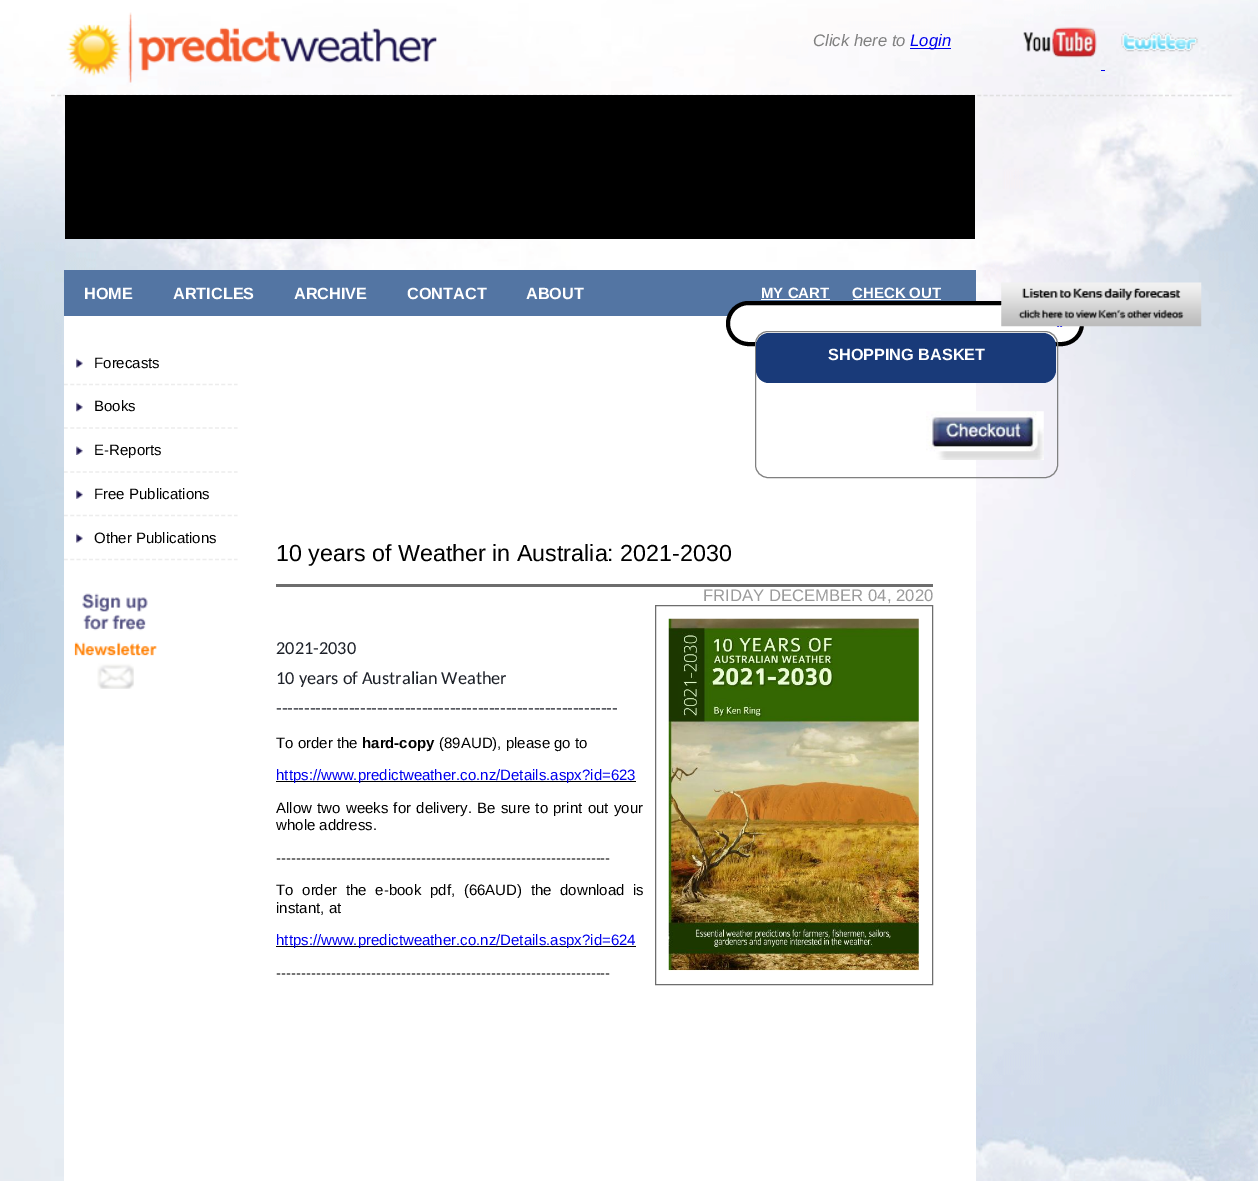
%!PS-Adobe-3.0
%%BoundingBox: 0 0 1258 1181
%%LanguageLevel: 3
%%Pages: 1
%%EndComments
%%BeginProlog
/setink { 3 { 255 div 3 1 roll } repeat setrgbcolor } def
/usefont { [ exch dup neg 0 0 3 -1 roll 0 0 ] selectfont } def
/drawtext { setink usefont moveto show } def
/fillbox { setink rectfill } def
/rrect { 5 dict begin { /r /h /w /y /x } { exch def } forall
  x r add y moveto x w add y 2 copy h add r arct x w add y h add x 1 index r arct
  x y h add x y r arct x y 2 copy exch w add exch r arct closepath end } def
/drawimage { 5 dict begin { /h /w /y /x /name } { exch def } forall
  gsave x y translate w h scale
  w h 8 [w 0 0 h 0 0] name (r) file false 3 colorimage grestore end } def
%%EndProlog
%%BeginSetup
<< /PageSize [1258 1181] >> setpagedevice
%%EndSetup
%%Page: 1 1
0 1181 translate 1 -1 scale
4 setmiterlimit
0 0 1258 1181 255 255 255 fillbox
(assets/img1.rgb) 0 0 1258 1181 drawimage
(assets/img2.rgb) 66 12 371 71 drawimage
(Click here to) 813 46 /LiberationSans-Italic 16.7 128 128 128 drawtext
910 48 41 1 0 0 238 fillbox
(Login) 910 46 /LiberationSans-Italic 16.7 0 0 238 drawtext
(assets/img3.rgb) 1023 27 74 31 drawimage
(assets/img4.rgb) 1121 32 77 20 drawimage
1101 70 4 1 0 0 238 fillbox
224 224 224 setink
1.2 setlinewidth
[3.75 2.51] 0 setdash
51 95.5 moveto 1232.5 95.5 lineto stroke
65 95 910 144 0 0 0 fillbox
64 316 912 865 255 255 255 fillbox
64 270 912 46 83 117 163 fillbox
(HOME) 84 299 /LiberationSans-Bold 16.25 255 255 255 drawtext
(ARTICLES) 173 299 /LiberationSans-Bold 16.25 255 255 255 drawtext
(ARCHIVE) 294 299 /LiberationSans-Bold 16.25 255 255 255 drawtext
(CONTACT) 407 299 /LiberationSans-Bold 16.25 255 255 255 drawtext
(ABOUT) 526 299 /LiberationSans-Bold 16.25 255 255 255 drawtext
(MY CART) 761 298 /LiberationSans-Bold 15 255 255 255 drawtext
761 299 69 1 255 255 255 fillbox
(CHECK OUT) 852 298 /LiberationSans-Bold 15 255 255 255 drawtext
853 299 88 1 255 255 255 fillbox
728 303 354 41 20.5 rrect gsave fill grestore
0 0 0 setink
4 setlinewidth
[] 0 setdash
stroke
128 128 128 setink
1 setlinewidth
755.5 331.5 302 146 12.5 rrect stroke
25 58 121 setink
756 333 300 50 13 rrect fill
(SHOPPING BASKET) 828 360 /LiberationSans-Bold 16.25 255 255 255 drawtext
(assets/img5.rgb) 926 411 118 49 drawimage
237 237 237 setink
1.2 setlinewidth
[3.75 2.55] 0 setdash
64 384.5 moveto 237.5 384.5 lineto stroke
(assets/img6.rgb) 76 358 7 10 drawimage
(Forecasts) 94 368 /LiberationSans-Regular 15 0 0 0 drawtext
237 237 237 setink
64 428 moveto 237.5 428 lineto stroke
(assets/img7.rgb) 76 402 7 10 drawimage
(Books) 94 411 /LiberationSans-Regular 15 0 0 0 drawtext
237 237 237 setink
64 472 moveto 237.5 472 lineto stroke
(assets/img8.rgb) 76 446 7 9 drawimage
(E-Reports) 94 455 /LiberationSans-Regular 15 0 0 0 drawtext
237 237 237 setink
64 515.5 moveto 237.5 515.5 lineto stroke
(assets/img9.rgb) 76 490 7 9 drawimage
(Free Publications) 94 499 /LiberationSans-Regular 15 0 0 0 drawtext
237 237 237 setink
64 559.5 moveto 237.5 559.5 lineto stroke
(assets/img6.rgb) 76 533 7 10 drawimage
(Other Publications) 94 543 /LiberationSans-Regular 15 0 0 0 drawtext
(assets/img10.rgb) 74 593 83 96 drawimage
276 584 657 3 109 109 109 fillbox
(10 years of Weather in Australia: 2021-2030) 276 561 /LiberationSans-Regular 23.3 0 0 0 drawtext
(FRIDAY DECEMBER 04, 2020) 703 601 /LiberationSans-Regular 16.7 155 155 155 drawtext
(2021-2030) 276 654 /Carlito-Regular 18.3 29 33 41 drawtext
109 109 109 setink
1 setlinewidth
[] 0 setdash
655.5 605.5 277 379 rectstroke
(assets/img11.rgb) 668 618 251 353 drawimage
(10 years of Australian Weather) 276 684 /Carlito-Regular 18.3 29 33 41 drawtext
(-------------------------------------------------------------) 276 714 /Carlito-Regular 18.3 29 33 41 drawtext
(To order the) 276 748 /LiberationSans-Regular 15 0 0 0 drawtext
(hard-copy) 362 748 /LiberationSans-Bold 15 0 0 0 drawtext
(\(89AUD\), please go to) 439 748 /LiberationSans-Regular 15 0 0 0 drawtext
276 781 360 1 0 0 0 fillbox
(https://www.predictweather.co.nz/Details.aspx?id=623) 276 780 /LiberationSans-Regular 15 0 0 238 drawtext
0 0 0 setink
276 813 moveto 1.1 0 32 (Allow two weeks for delivery. Be sure to print out your) widthshow
(whole address.) 276 830 /LiberationSans-Regular 15 0 0 0 drawtext
(-------------------------------------------------------------------) 276 863 /LiberationSans-Regular 15 0 0 0 drawtext
276 895 moveto 4.5 0 32 (To order the e-book pdf, \(66AUD\) the download is) widthshow
(instant, at) 276 913 /LiberationSans-Regular 15 0 0 0 drawtext
276 946 360 1 0 0 0 fillbox
(https://www.predictweather.co.nz/Details.aspx?id=624) 276 945 /LiberationSans-Regular 15 0 0 238 drawtext
(-------------------------------------------------------------------) 276 978 /LiberationSans-Regular 15 0 0 0 drawtext
(assets/img12.rgb) 1001 282 201 45 drawimage
showpage
%%EOF
